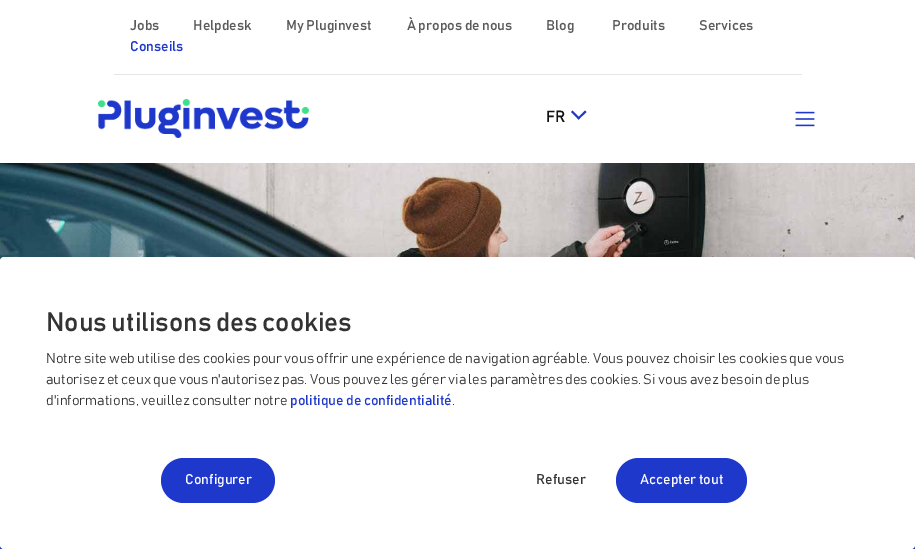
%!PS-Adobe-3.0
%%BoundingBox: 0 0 915 549
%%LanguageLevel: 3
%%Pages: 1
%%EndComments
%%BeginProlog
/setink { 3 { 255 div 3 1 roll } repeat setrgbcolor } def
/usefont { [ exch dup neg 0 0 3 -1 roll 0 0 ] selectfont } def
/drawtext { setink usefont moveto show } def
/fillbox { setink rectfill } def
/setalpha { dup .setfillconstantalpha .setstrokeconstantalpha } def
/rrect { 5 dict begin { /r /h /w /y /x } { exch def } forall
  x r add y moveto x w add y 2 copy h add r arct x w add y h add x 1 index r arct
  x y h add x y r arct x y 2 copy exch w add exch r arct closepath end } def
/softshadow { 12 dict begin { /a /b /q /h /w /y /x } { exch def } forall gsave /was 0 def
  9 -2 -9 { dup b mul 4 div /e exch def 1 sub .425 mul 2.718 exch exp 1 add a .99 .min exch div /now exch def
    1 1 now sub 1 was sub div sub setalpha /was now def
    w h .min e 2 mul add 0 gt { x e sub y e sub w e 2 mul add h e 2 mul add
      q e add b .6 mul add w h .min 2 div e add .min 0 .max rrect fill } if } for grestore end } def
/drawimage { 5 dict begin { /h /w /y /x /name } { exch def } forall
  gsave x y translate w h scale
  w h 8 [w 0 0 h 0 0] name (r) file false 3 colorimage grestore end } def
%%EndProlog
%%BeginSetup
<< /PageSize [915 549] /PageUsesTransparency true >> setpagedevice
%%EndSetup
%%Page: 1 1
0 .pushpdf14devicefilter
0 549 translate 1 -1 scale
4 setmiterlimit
0 0 915 549 255 255 255 fillbox
(Jobs) 130 30 /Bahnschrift-Medium 14 90 90 90 drawtext
(Helpdesk) 193 30 /Bahnschrift-Medium 14 90 90 90 drawtext
(My Pluginvest) 286 30 /Bahnschrift-Medium 14 90 90 90 drawtext
(À propos de nous) 407 30 /Bahnschrift-Medium 14 90 90 90 drawtext
(Blog) 546 30 /Bahnschrift-Medium 14 90 90 90 drawtext
(Produits) 612 30 /Bahnschrift-Medium 14 90 90 90 drawtext
(Services) 699 30 /Bahnschrift-Medium 14 90 90 90 drawtext
(Conseils) 130 51 /Bahnschrift-Medium 14 31 56 204 drawtext
114 74 688 1 230 230 230 fillbox
(assets/img1.rgb) 98 99 211 39 drawimage
(FR) 546 122 /Bahnschrift-Medium 16 17 17 17 drawtext
31 56 204 setink
586.5 112 moveto 578.5 119.5 lineto 577.5 118 lineto 585 110.5 lineto closepath fill
580 118 moveto 578.5 119.5 lineto 571 112 lineto 572.5 110.5 lineto closepath fill
(assets/img2.rgb) 795 111 20 16 drawimage
(assets/img3.rgb) 0 163 915 98 drawimage
0 545 915 4 31 56 204 fillbox
0 0 0 setink
0 265 915 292 4 16 0.12 softshadow
255 255 255 setink
0 257 915 292 4 rrect fill
(Nous utilisons des cookies) 46 331 /Bahnschrift-Medium 26.25 51 51 51 drawtext
(Notre site web utilise des cookies pour vous offrir une expérience de navigation agréable. Vous pouvez choisir les cookies que vous) 46 363 /Bahnschrift-Light 14 51 51 51 drawtext
(autorisez et ceux que vous n'autorisez pas. Vous pouvez les gérer via les paramètres des cookies. Si vous avez besoin de plus) 46 384 /Bahnschrift-Light 14 51 51 51 drawtext
(d'informations, veuillez consulter notre) 46 405 /Bahnschrift-Light 14 51 51 51 drawtext
(politique de confidentialité) 290 405 /Bahnschrift-Regular 14 31 56 204 drawtext
(.) 452 405 /Bahnschrift-Light 14 51 51 51 drawtext
31 56 204 setink
161 458 114 45 22.5 rrect fill
(Configurer) 185 484 /Bahnschrift-Regular 14 255 255 255 drawtext
(Refuser) 536 484 /Bahnschrift-Regular 14 51 51 51 drawtext
31 56 204 setink
616 458 131 45 22.5 rrect fill
(Accepter tout) 640 484 /Bahnschrift-Regular 14 255 255 255 drawtext
.poppdf14devicefilter showpage
%%EOF
